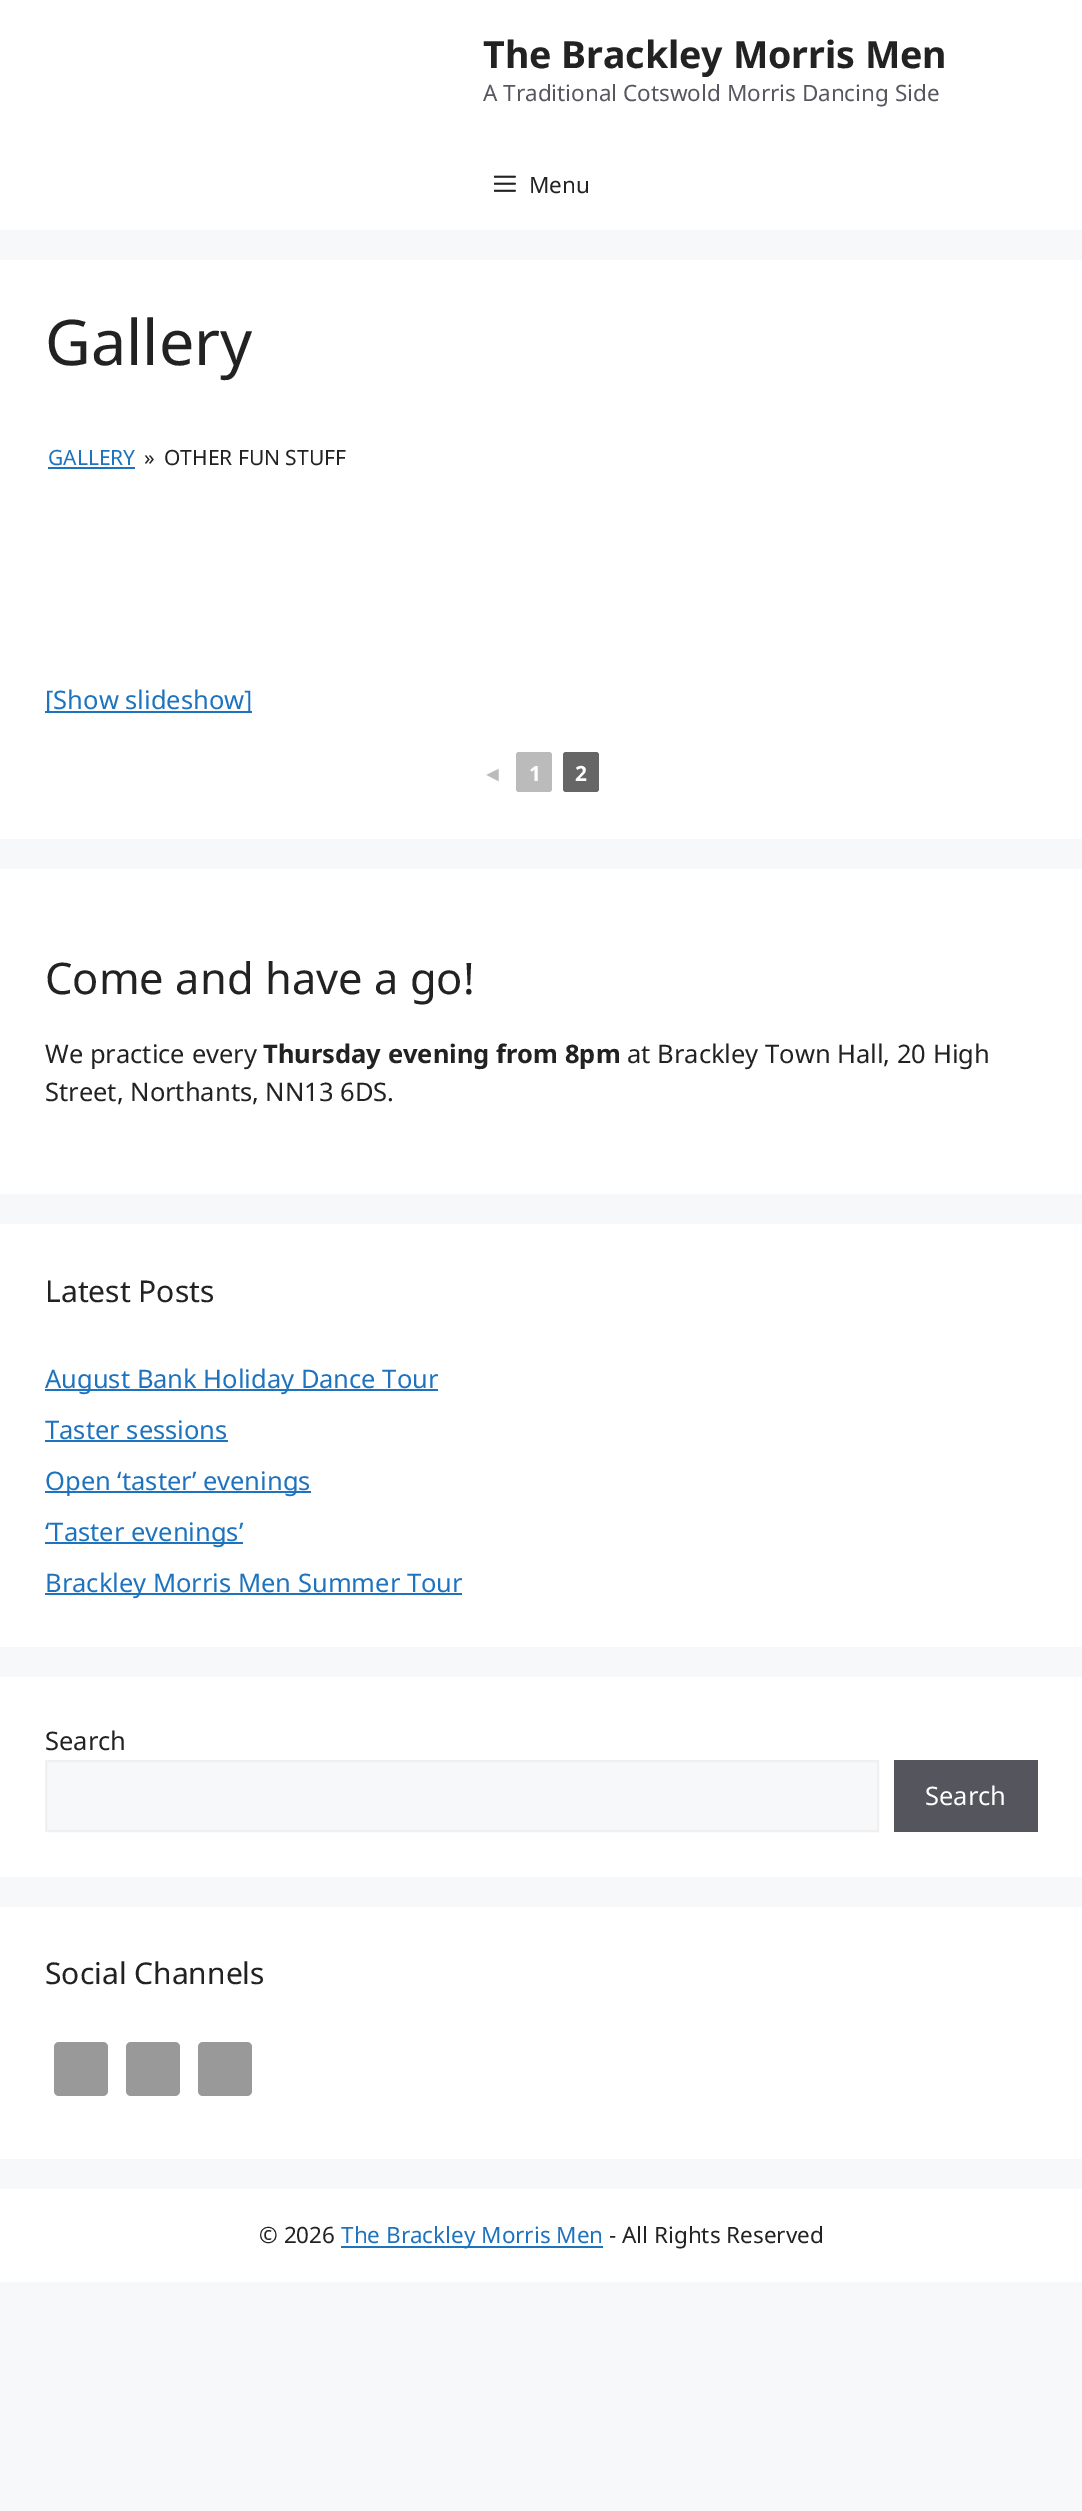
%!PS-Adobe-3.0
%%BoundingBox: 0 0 1082 2511
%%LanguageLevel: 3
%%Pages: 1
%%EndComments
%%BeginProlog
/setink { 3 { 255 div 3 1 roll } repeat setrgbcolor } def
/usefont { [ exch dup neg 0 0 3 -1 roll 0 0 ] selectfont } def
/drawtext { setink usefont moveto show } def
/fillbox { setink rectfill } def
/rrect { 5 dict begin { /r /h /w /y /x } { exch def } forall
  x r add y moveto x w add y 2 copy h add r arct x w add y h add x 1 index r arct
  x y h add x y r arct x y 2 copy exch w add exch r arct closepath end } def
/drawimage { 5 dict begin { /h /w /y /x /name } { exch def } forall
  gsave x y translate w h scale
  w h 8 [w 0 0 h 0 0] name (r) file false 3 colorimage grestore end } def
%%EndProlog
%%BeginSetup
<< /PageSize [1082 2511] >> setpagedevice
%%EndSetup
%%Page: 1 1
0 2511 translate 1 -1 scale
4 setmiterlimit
0 0 1082 2511 247 248 249 fillbox
0 0 1082 230 255 255 255 fillbox
(The Brackley Morris Men) 483 68 /NotoSans-Bold 37.5 34 34 34 drawtext
(A Traditional Cotswold Morris Dancing Side) 483 101 /NotoSans-Regular 22.5 87 87 96 drawtext
(assets/img1.rgb) 494 175 22 17 drawimage
(Menu) 529 193 /NotoSans-Regular 22.5 34 34 34 drawtext
0 260 1082 579 255 255 255 fillbox
(Gallery) 45 365 /NotoSans-Regular 63 34 34 34 drawtext
(GALLERY) 48 465 /NotoSans-Regular 21 30 115 190 drawtext
48 467 87 2 30 115 190 fillbox
(») 144 465 /NotoSans-Regular 21 34 34 34 drawtext
(OTHER FUN STUFF) 164 465 /NotoSans-Regular 21 34 34 34 drawtext
45 711 207 2 30 115 190 fillbox
([Show slideshow]) 45 709 /NotoSans-Regular 25.5 30 115 190 drawtext
(◄) 482 781 /LiberationSans-Bold 21 187 187 187 drawtext
516 752 36 40 3 rrect fill
(1) 529 781 /NotoSans-Bold 21 255 255 255 drawtext
102 102 102 setink
563 752 36 40 3 rrect fill
(2) 575 781 /NotoSans-Bold 21 255 255 255 drawtext
0 869 1082 325 255 255 255 fillbox
(Come and have a go!) 45 994 /NotoSans-Regular 43.5 34 34 34 drawtext
(We practice every) 45 1063 /NotoSans-Regular 25.5 34 34 34 drawtext
(Thursday evening from 8pm) 263 1063 /NotoSans-Bold 25.5 34 34 34 drawtext
(at Brackley Town Hall, 20 High) 627 1063 /NotoSans-Regular 25.5 34 34 34 drawtext
(Street, Northants, NN13 6DS.) 45 1101 /NotoSans-Regular 25.5 34 34 34 drawtext
0 1224 1082 423 255 255 255 fillbox
(Latest Posts) 45 1302 /NotoSans-Regular 30 34 34 34 drawtext
45 1389 393 2 30 115 190 fillbox
(August Bank Holiday Dance Tour) 45 1388 /NotoSans-Regular 25.5 30 115 190 drawtext
(Taster sessions) 45 1439 /NotoSans-Regular 25.5 30 115 190 drawtext
45 1440 183 2 30 115 190 fillbox
45 1491 266 2 30 115 190 fillbox
(Open ‘taster’ evenings) 45 1490 /NotoSans-Regular 25.5 30 115 190 drawtext
45 1542 198 2 30 115 190 fillbox
(‘Taster evenings’) 45 1541 /NotoSans-Regular 25.5 30 115 190 drawtext
45 1593 417 2 30 115 190 fillbox
(Brackley Morris Men Summer Tour) 45 1592 /NotoSans-Regular 25.5 30 115 190 drawtext
0 1677 1082 200 255 255 255 fillbox
(Search) 45 1750 /NotoSans-Regular 25.5 34 34 34 drawtext
247 248 249 setink
46 1761 moveto 878 1761 lineto 878 1831 lineto 46 1831 lineto closepath gsave fill grestore
240 240 240 setink
2 setlinewidth
stroke
894 1760 144 72 85 85 94 fillbox
(Search) 925 1805 /NotoSans-Regular 25.5 255 255 255 drawtext
0 1907 1082 252 255 255 255 fillbox
(Social Channels) 45 1984 /NotoSans-Regular 30 34 34 34 drawtext
153 153 153 setink
54 2042 54 54 5 rrect fill
126 2042 54 54 5 rrect fill
198 2042 54 54 5 rrect fill
0 2189 1082 93 255 255 255 fillbox
(© 2026) 259 2243 /NotoSans-Regular 22.5 34 34 34 drawtext
341 2246 262 2 30 115 190 fillbox
(The Brackley Morris Men) 341 2243 /NotoSans-Regular 22.5 30 115 190 drawtext
(- All Rights Reserved) 609 2243 /NotoSans-Regular 22.5 34 34 34 drawtext
showpage
%%EOF
